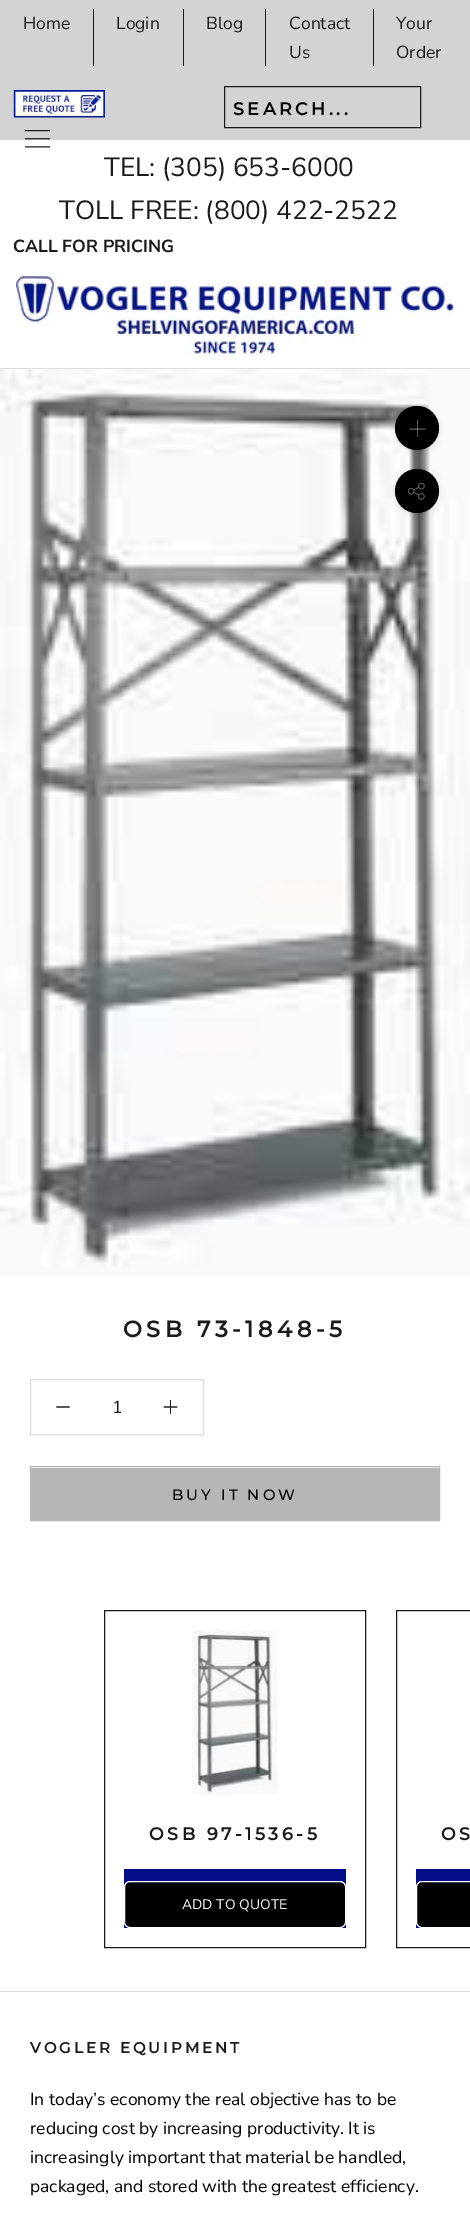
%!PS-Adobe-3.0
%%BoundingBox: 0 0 470 2217
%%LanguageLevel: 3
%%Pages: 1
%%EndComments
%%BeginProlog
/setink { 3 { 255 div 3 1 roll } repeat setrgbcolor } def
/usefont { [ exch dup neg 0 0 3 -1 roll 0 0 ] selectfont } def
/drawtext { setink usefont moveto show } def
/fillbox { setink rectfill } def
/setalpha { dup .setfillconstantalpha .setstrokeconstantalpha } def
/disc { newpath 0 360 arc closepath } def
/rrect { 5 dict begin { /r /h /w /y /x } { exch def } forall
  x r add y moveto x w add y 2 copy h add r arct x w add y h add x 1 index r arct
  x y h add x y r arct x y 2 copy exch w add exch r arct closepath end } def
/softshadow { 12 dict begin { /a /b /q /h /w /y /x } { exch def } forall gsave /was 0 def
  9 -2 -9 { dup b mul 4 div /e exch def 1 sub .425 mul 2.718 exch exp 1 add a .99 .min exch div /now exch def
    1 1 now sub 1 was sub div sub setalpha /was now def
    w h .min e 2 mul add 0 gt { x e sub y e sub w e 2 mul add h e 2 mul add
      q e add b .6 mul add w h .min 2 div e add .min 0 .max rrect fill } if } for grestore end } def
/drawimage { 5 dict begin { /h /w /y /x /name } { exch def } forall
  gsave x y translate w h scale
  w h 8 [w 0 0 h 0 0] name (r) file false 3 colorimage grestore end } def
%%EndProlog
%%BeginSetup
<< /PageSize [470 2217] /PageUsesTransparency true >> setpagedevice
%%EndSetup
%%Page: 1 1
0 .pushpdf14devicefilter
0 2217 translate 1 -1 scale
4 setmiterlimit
0 0 470 2217 255 255 255 fillbox
0 0 470 140 211 211 211 fillbox
(Home) 23 29 /NunitoSans-Regular 17.5 28 27 27 drawtext
93 9 1 57 28 27 27 fillbox
(Login) 116 29 /NunitoSans-Regular 17.5 28 27 27 drawtext
183 9 1 57 28 27 27 fillbox
(Blog) 206 29 /NunitoSans-Regular 17.5 28 27 27 drawtext
265 9 1 57 28 27 27 fillbox
(Contact) 289 29 /NunitoSans-Regular 17.5 28 27 27 drawtext
(Us) 289 58 /NunitoSans-Regular 17.5 28 27 27 drawtext
373 9 1 57 28 27 27 fillbox
(Your) 396 29 /NunitoSans-Regular 17.5 28 27 27 drawtext
(Order) 396 58 /NunitoSans-Regular 17.5 28 27 27 drawtext
(assets/img1.rgb) 13 90 92 28 drawimage
224.5 86.5 196 41 rectstroke
/Montserrat-Bold 17.5 usefont
0 0 0 setink
233 115 moveto 3.5 0 (SEARCH...) ashow
0 368 470 1 221 221 221 fillbox
(assets/img2.rgb) 25 130 25 18 drawimage
(TEL: \(305\) 653-6000) 104 176 /NunitoSans-Regular 26.25 28 27 27 drawtext
(TOLL FREE: \(800\) 422-2522) 59 219 /NunitoSans-Regular 26.25 28 27 27 drawtext
(CALL FOR PRICING) 13 252 /NunitoSans-Bold 17.5 28 27 27 drawtext
(assets/img3.rgb) 16 275 438 81 drawimage
(assets/img4.rgb) 0 369 470 907 drawimage
54 54 54 setink
395 408 44 43 21.5 3 0.15 softshadow
0 0 0 setink
417 428 22 disc fill
417 420 1 17 91 91 91 fillbox
0.5 setalpha
182 182 182 setink
1.1 setlinewidth
2 setlinecap
410 429 moveto 425 429 lineto stroke
1 setalpha
54 54 54 setink
395 470 44 44 22 3 0.15 softshadow
0 0 0 setink
417 491 22 disc fill
(assets/img5.rgb) 408 483 17 17 drawimage
/Montserrat-Bold 22.5 usefont
28 27 27 setink
123 1337 moveto 4.5 0 (OSB 73-1848-5) ashow
221 221 221 setink
1 setlinewidth
0 setlinecap
30.5 1379.5 173 55 rectstroke
28 27 27 setink
1.3 setlinewidth
2 setlinecap
57 1407 moveto 69 1407 lineto stroke
(1) 112 1413 /NunitoSans-Regular 17.5 28 27 27 drawtext
170 1400 1 14 28 27 27 fillbox
164.5 1407 moveto 176.5 1407 lineto stroke
182 182 182 setink
1 setlinewidth
0 setlinecap
30.5 1466.5 409 54 rectstroke
31 1468 408 52 182 182 182 fillbox
/Montserrat-Medium 15 usefont
0 0 0 setink
172 1500 moveto 3 0 (BUY IT NOW) ashow
28 27 27 setink
104.5 1610.5 261 337 rectstroke
(assets/img6.rgb) 192 1630 86 165 drawimage
/Montserrat-Bold 17.5 usefont
149 1840 moveto 3.5 0 (OSB 97-1536-5) ashow
124 1869 222 59 3 14 136 fillbox
0 0 0 setink
124.5 1881.5 221 46 5.5 rrect gsave fill grestore
255 255 255 setink
stroke
(ADD TO QUOTE) 182 1909 /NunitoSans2-Regular 13.75 255 255 255 drawtext
28 27 27 setink
396.5 1610.5 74 337 rectstroke
/Montserrat-Bold 17.5 usefont
441 1840 moveto 3.5 0 (OS) ashow
416 1869 54 59 3 14 136 fillbox
0 0 0 setink
422 1881 moveto 470 1881 lineto 470 1928 lineto 422 1928 lineto 418.5 1928 416 1925.5 416 1922 curveto 416 1887 lineto 416 1883.5 418.5 1881 422 1881 curveto closepath fill
255 255 255 setink
416.5 1881.5 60 46 5.5 rrect stroke
0 1991 470 1 221 221 221 fillbox
/Montserrat-Bold 15 usefont
28 27 27 setink
30 2053 moveto 3 0 (VOGLER EQUIPMENT) ashow
(In today’s economy the real objective has to be) 30 2105 /NunitoSans-Regular 17.5 0 0 0 drawtext
(reducing cost by increasing productivity. It is) 30 2134 /NunitoSans-Regular 17.5 0 0 0 drawtext
(increasingly important that material be handled,) 30 2163 /NunitoSans-Regular 17.5 0 0 0 drawtext
(packaged, and stored with the greatest efficiency.) 30 2192 /NunitoSans-Regular 17.5 0 0 0 drawtext
.poppdf14devicefilter showpage
%%EOF
